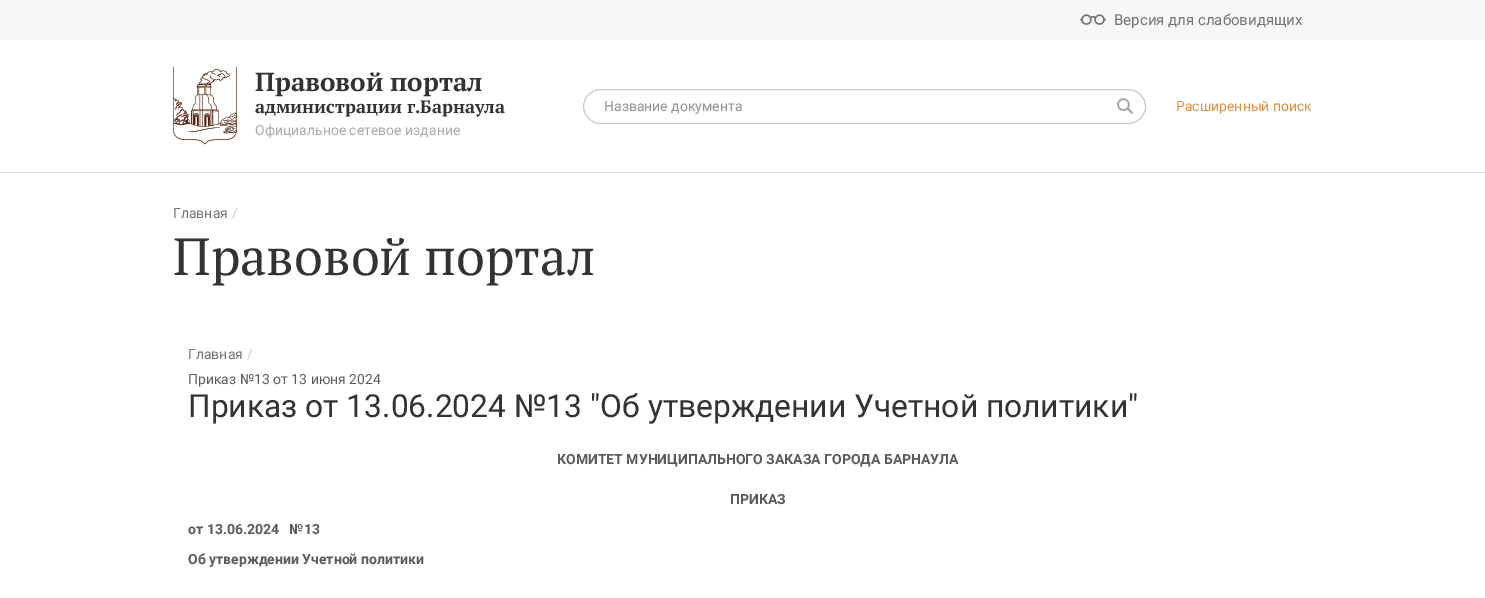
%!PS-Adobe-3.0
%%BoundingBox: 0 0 1485 598
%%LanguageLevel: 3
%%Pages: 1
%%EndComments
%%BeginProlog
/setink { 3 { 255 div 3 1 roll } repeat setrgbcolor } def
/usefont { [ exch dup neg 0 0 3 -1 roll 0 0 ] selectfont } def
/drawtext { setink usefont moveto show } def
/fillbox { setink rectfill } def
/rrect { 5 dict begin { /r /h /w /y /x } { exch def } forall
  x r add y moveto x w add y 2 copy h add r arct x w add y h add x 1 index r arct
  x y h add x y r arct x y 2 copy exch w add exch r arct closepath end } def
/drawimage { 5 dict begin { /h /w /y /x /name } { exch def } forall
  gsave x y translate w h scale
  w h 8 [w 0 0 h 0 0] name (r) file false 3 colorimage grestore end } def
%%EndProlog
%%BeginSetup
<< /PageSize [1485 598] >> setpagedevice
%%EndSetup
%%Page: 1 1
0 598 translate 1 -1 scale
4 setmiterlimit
0 0 1485 598 255 255 255 fillbox
0 172 1485 1 220 220 220 fillbox
0 0 1485 40 247 247 247 fillbox
(assets/img1.rgb) 1080 14 26 11 drawimage
(Версия для слабовидящих) 1114 25 /Roboto-Regular 15 115 115 115 drawtext
(assets/img2.rgb) 173 67 64 78 drawimage
(Правовой портал) 255 91 /PTSerif-Bold 26 51 51 51 drawtext
(администрации г.Барнаула) 255 113 /PTSerif-Bold 18 51 51 51 drawtext
(Официальное сетевое издание) 255 135 /Roboto-Regular 14 170 170 170 drawtext
202 202 202 setink
583.5 89.5 562 34 17 rrect stroke
(Название документа) 604 111 /Roboto-Regular 14 145 145 145 drawtext
(assets/img3.rgb) 1117 98 16 16 drawimage
(Расширенный поиск) 1176 111 /Roboto-Regular 14 224 143 64 drawtext
(Главная) 173 218 /Roboto-Regular 14 115 115 115 drawtext
(/) 232 218 /Roboto-Regular 14 204 204 204 drawtext
(Правовой портал) 173 275 /PTSerif-Regular 52.25 51 51 51 drawtext
(Главная) 188 359 /Roboto-Regular 14 115 115 115 drawtext
(/) 247 359 /Roboto-Regular 14 204 204 204 drawtext
(Приказ №13 от 13 июня 2024) 188 384 /Roboto-Regular 14 91 91 91 drawtext
(Приказ от 13.06.2024 №13 "Об утверждении Учетной политики") 188 417 /Roboto-Regular 31.75 51 51 51 drawtext
(КОМИТЕТ МУНИЦИПАЛЬНОГО ЗАКАЗА ГОРОДА БАРНАУЛА) 557 464 /Roboto-Bold 14 91 91 91 drawtext
(ПРИКАЗ) 730 504 /Roboto-Bold 14 91 91 91 drawtext
(от 13.06.2024   №13) 188 534 /Roboto-Bold 14 91 91 91 drawtext
(Об утверждении Учетной политики) 188 564 /Roboto-Bold 14 91 91 91 drawtext
showpage
%%EOF
